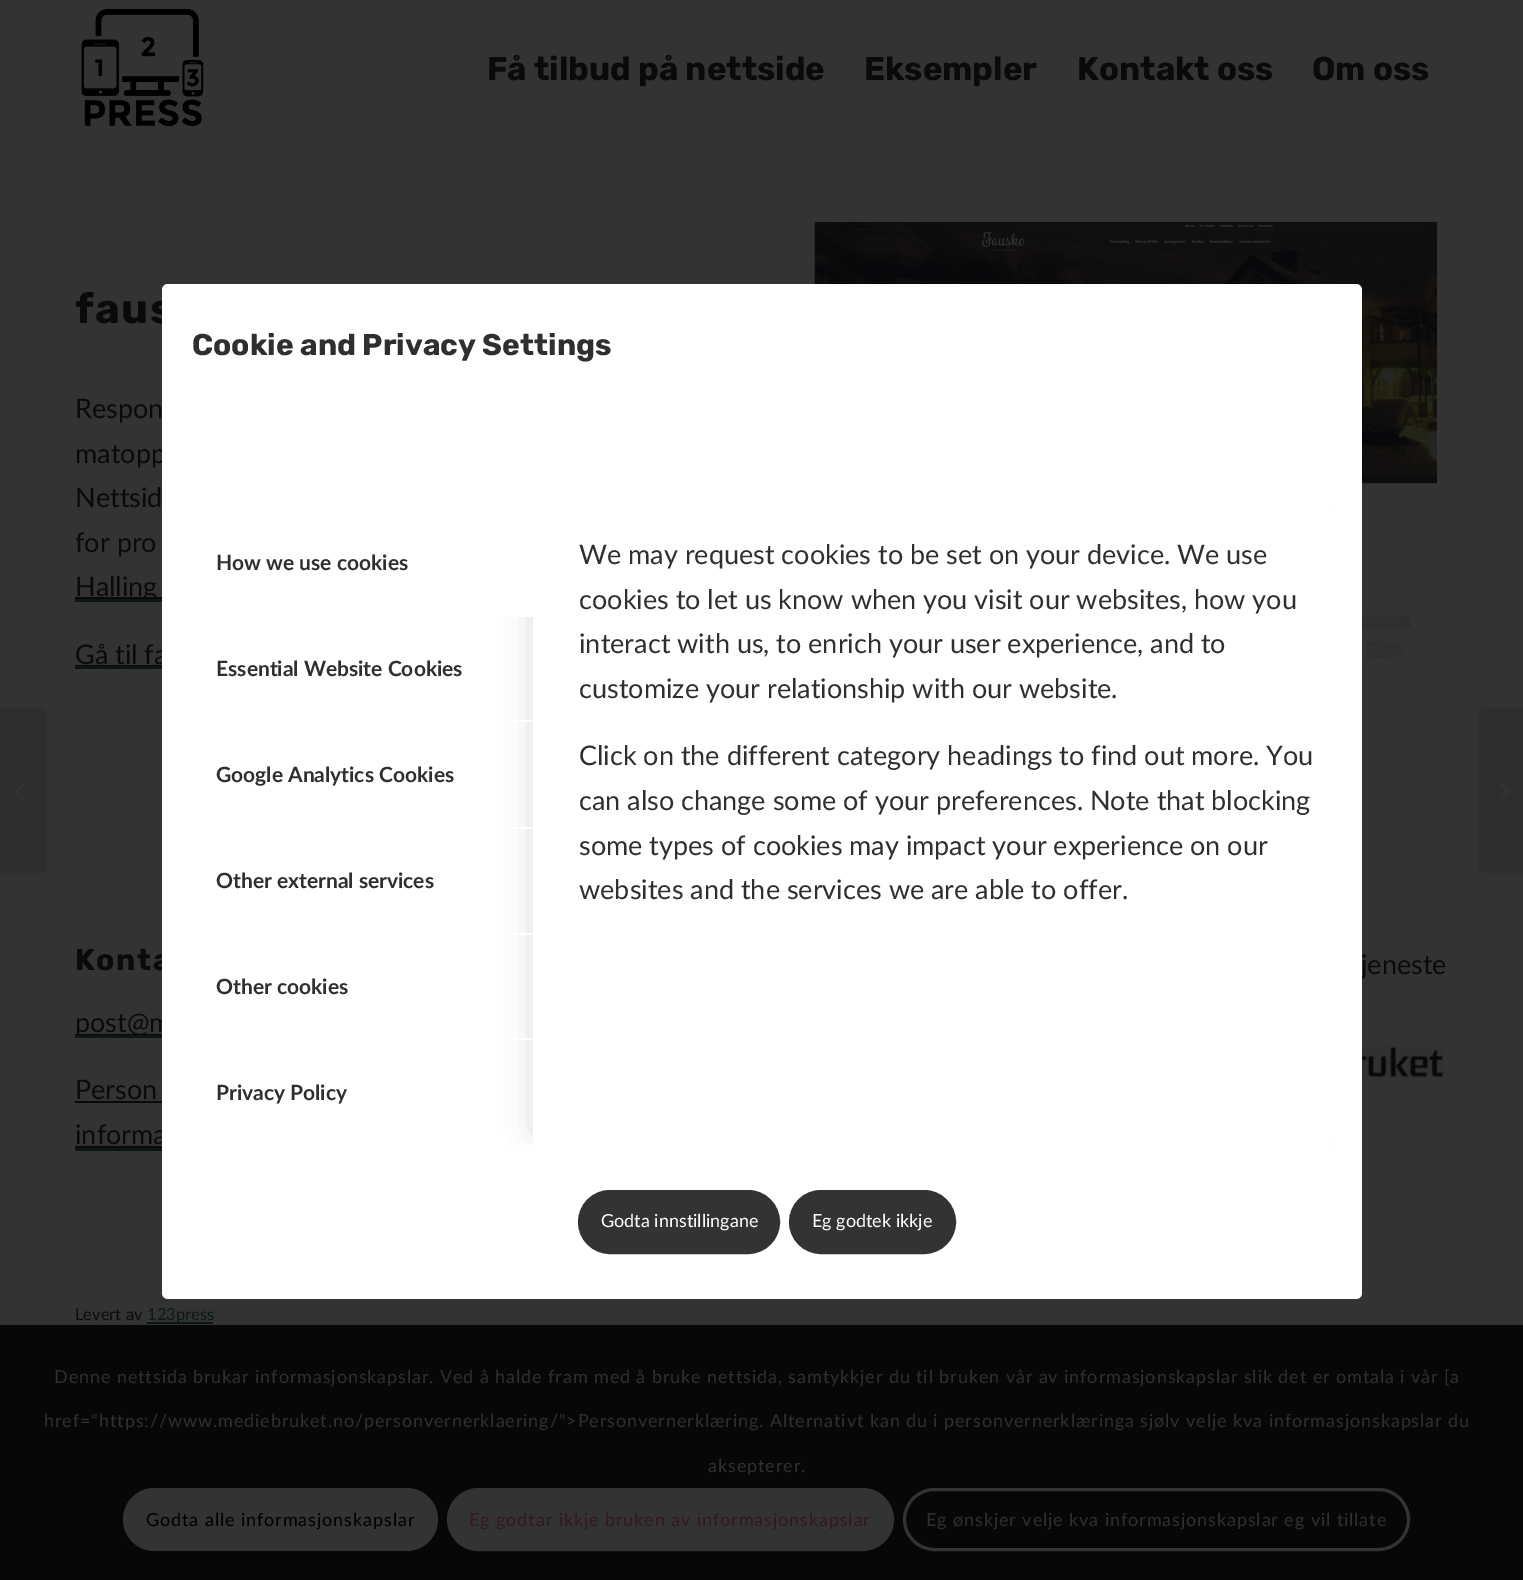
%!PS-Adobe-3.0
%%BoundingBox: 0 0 1523 1580
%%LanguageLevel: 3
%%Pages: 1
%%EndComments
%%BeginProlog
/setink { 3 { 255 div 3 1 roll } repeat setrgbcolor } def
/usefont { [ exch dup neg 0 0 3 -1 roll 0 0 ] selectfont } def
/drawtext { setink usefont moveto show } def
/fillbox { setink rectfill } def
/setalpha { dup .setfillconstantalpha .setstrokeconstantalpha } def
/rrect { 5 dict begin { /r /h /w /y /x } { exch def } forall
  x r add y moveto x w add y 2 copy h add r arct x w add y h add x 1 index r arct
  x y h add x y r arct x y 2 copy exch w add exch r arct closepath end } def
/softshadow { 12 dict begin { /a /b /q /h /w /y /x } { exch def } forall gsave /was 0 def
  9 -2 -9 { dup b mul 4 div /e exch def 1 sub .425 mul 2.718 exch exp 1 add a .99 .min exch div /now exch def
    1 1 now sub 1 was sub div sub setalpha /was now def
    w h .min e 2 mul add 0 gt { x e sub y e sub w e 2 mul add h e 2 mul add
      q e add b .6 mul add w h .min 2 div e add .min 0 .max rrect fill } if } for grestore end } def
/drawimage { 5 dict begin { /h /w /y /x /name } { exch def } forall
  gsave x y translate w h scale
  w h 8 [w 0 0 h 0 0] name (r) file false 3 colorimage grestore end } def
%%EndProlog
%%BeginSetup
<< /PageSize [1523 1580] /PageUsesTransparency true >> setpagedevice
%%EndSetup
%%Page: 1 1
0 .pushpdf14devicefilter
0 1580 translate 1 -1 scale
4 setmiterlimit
0 0 1523 1580 51 51 51 fillbox
(assets/img1.rgb) 81 8 123 119 drawimage
(Få tilbud på nettside) 487 80 /Rubik-Bold 33 10 10 10 drawtext
(Eksempler) 864 80 /Rubik-Bold 33 10 10 10 drawtext
(Kontakt oss) 1077 80 /Rubik-Bold 33 10 10 10 drawtext
(Om oss) 1312 80 /Rubik-Bold 33 10 10 10 drawtext
0.1 setalpha
0 0 0 setink
0 708 moveto 41 708 lineto 44.5 708 47 710.5 47 714 curveto 47 867 lineto 47 870.5 44.5 873 41 873 curveto 0 873 lineto closepath fill
1 setalpha
(assets/img2.rgb) 15 783 10 17 drawimage
/Rubik-Bold 42 usefont
10 10 10 setink
75 323 moveto 1.5 0 (faus) ashow
(Respon) 75 418 /Lato-Regular 27 10 10 10 drawtext
(matopp) 75 463 /Lato-Regular 27 10 10 10 drawtext
(Nettsid) 75 507 /Lato-Regular 27 10 10 10 drawtext
(for pro) 75 552 /Lato-Regular 27 10 10 10 drawtext
75 597 87 2 10 10 10 fillbox
(Halling) 75 596 /Lato-Regular 27 10 10 10 drawtext
75 599 87 3 9 24 19 fillbox
(Gå til fa) 75 664 /Lato-Regular 27 10 10 10 drawtext
75 665 87 1 10 10 10 fillbox
75 666 87 3 9 24 19 fillbox
(assets/img3.rgb) 814 222 623 350 drawimage
(assets/img4.rgb) 1362 615 49 43 drawimage
/Rubik-Bold 30 usefont
10 10 10 setink
75 970 moveto 1.5 0 (Konta) ashow
75 1034 87 1 10 10 10 fillbox
(post@m) 75 1032 /Lato-Regular 27 10 10 10 drawtext
75 1035 87 3 9 24 19 fillbox
(Person) 75 1099 /Lato-Regular 27 10 10 10 drawtext
75 1101 87 2 10 10 10 fillbox
(informa) 75 1144 /Lato-Regular 27 10 10 10 drawtext
75 1146 87 2 10 10 10 fillbox
75 1148 87 3 9 24 19 fillbox
(jeneste) 1361 974 /Lato-Regular 27 10 10 10 drawtext
(assets/img5.rgb) 1362 1046 82 32 drawimage
(Levert av) 75 1320 /Lato-Regular 16.5 10 10 10 drawtext
147 1322 66 2 9 24 19 fillbox
(123press) 147 1320 /Lato-Regular 16.5 9 24 19 drawtext
0.1 setalpha
0 0 0 setink
1484 708 moveto 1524 708 lineto 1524 873 lineto 1484 873 lineto 1480.5 873 1478 870.5 1478 867 curveto 1478 714 lineto 1478 710.5 1480.5 708 1484 708 curveto closepath fill
1 setalpha
(assets/img6.rgb) 1500 783 10 17 drawimage
255 255 255 setink
162 284 1200 1015 6 rrect fill
(Cookie and Privacy Settings) 192 355 /Rubik-Bold 30 47 47 47 drawtext
gsave
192 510 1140 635 rectclip
0 0 0 setink
537 525 768 605 0 15 0.2 softshadow
grestore
533 615 1 107 255 255 255 fillbox
534 510 798 635 3 rrect fill
195 510 moveto 536 510 lineto 536 617 lineto 192 617 lineto 192 513 lineto 192 511.5 193.5 510 195 510 curveto closepath fill
(How we use cookies) 216 570 /Lato-Bold 21 47 47 47 drawtext
512 720 22 2 255 255 255 fillbox
(Essential Website Cookies) 216 676 /Lato-Bold 21 47 47 47 drawtext
533 720 1 108 255 255 255 fillbox
512 827 22 2 255 255 255 fillbox
(Google Analytics Cookies) 216 782 /Lato-Bold 21 47 47 47 drawtext
533 827 1 108 255 255 255 fillbox
512 933 22 2 255 255 255 fillbox
(Other external services) 216 888 /Lato-Bold 21 47 47 47 drawtext
533 933 1 107 255 255 255 fillbox
512 1038 22 2 255 255 255 fillbox
(Other cookies) 216 994 /Lato-Bold 21 47 47 47 drawtext
533 1038 2 107 255 255 255 fillbox
(Privacy Policy) 216 1100 /Lato-Bold 21 47 47 47 drawtext
(We may request cookies to be set on your device. We use) 579 564 /Lato-Regular 27 47 47 47 drawtext
(cookies to let us know when you visit our websites, how you) 579 609 /Lato-Regular 27 47 47 47 drawtext
(interact with us, to enrich your user experience, and to) 579 653 /Lato-Regular 27 47 47 47 drawtext
(customize your relationship with our website.) 579 698 /Lato-Regular 27 47 47 47 drawtext
(Click on the different category headings to find out more. You) 579 765 /Lato-Regular 27 47 47 47 drawtext
(can also change some of your preferences. Note that blocking) 579 810 /Lato-Regular 27 47 47 47 drawtext
(some types of cookies may impact your experience on our) 579 855 /Lato-Regular 27 47 47 47 drawtext
(websites and the services we are able to offer.) 579 899 /Lato-Regular 27 47 47 47 drawtext
51 51 51 setink
579.5 1191.5 199 61 30.5 rrect gsave fill grestore
3 setlinewidth
stroke
(Godta innstillingane) 601 1227 /Lato-Regular 18 255 255 255 drawtext
51 51 51 setink
790.5 1191.5 164 61 30.5 rrect gsave fill grestore
stroke
(Eg godtek ikkje) 812 1227 /Lato-Regular 18 255 255 255 drawtext
0 1325 1523 255 7 7 7 fillbox
47 47 47 setink
54 1383 moveto 0.9 0 (Denne nettsida brukar informasjonskapslar. Ved å halde fram med å bruke nettsida, samtykkjer du til bruken vår av informasjonskapslar slik det er omtala i vår [a) ashow
44 1427 moveto 0.9 0 (href="https://www.mediebruket.no/personvernerklaering/">Personvernerklæring. Alternativt kan du i personvernerklæringa sjølv velje kva informasjonskapslar du) ashow
708 1472 moveto 0.9 0 (aksepterer.) ashow
51 51 51 setink
123 1488 315 63 31.5 rrect fill
0 0 0 setink
146 1526 moveto 0.9 0 (Godta alle informasjonskapslar) ashow
51 51 51 setink
448.5 1489.5 444 60 30 rrect gsave fill grestore
stroke
51 23 36 setink
469 1526 moveto 0.9 0 (Eg godtar ikkje bruken av informasjonskapslar) ashow
51 51 51 setink
904.5 1489.5 504 60 30 rrect stroke
47 47 47 setink
926 1526 moveto 0.9 0 (Eg ønskjer velje kva informasjonskapslar eg vil tillate) ashow
.poppdf14devicefilter showpage
%%EOF
